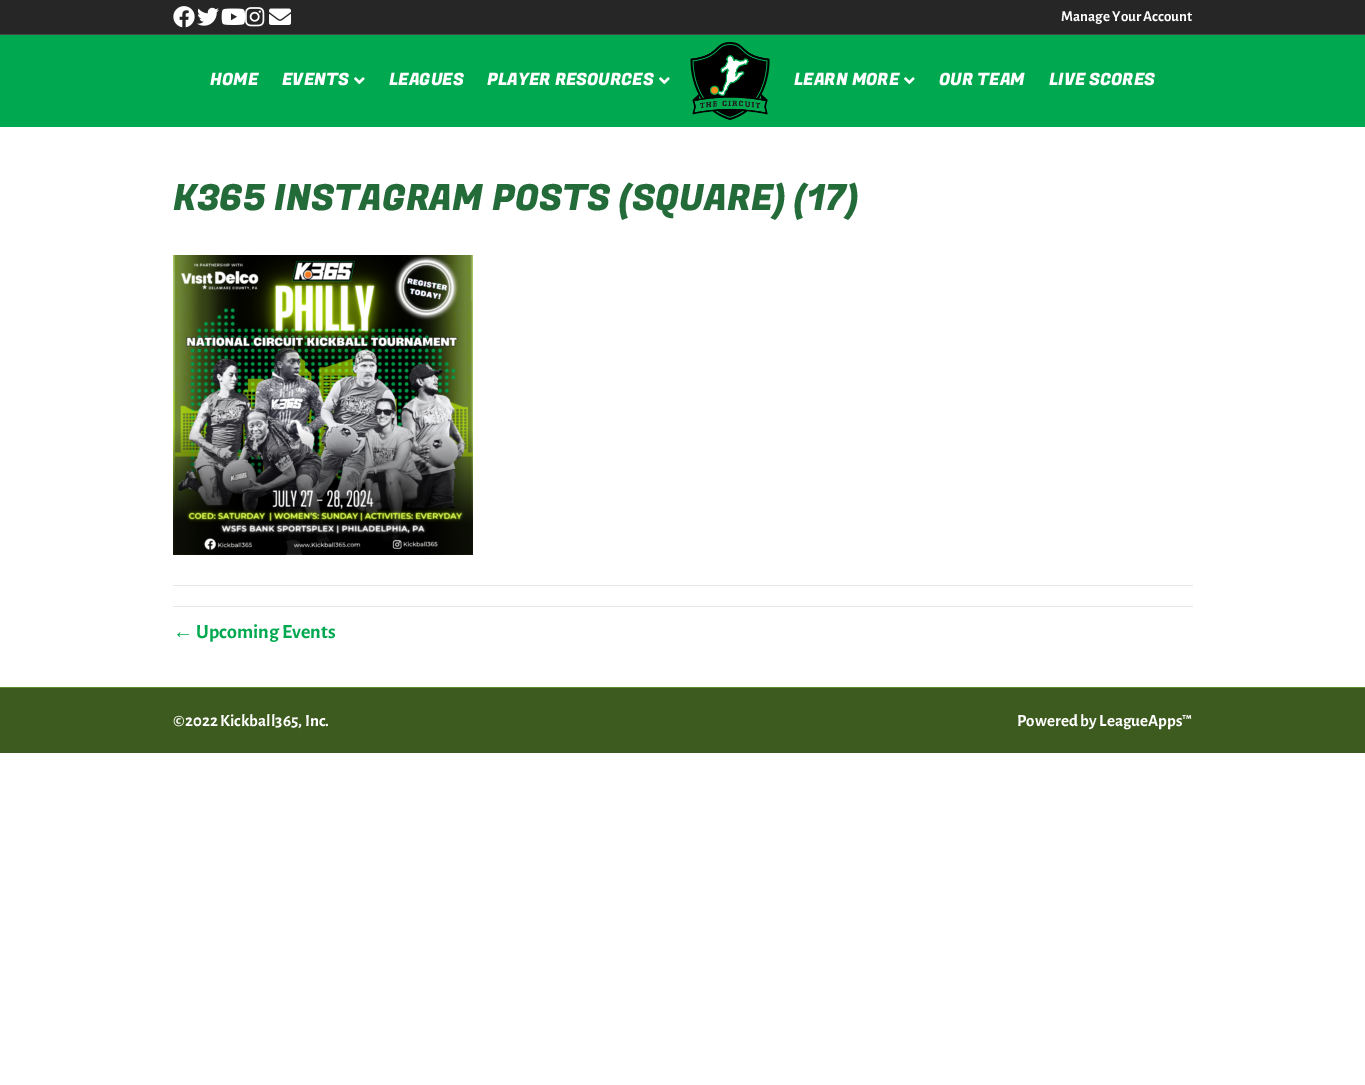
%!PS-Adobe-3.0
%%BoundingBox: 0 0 1365 1085
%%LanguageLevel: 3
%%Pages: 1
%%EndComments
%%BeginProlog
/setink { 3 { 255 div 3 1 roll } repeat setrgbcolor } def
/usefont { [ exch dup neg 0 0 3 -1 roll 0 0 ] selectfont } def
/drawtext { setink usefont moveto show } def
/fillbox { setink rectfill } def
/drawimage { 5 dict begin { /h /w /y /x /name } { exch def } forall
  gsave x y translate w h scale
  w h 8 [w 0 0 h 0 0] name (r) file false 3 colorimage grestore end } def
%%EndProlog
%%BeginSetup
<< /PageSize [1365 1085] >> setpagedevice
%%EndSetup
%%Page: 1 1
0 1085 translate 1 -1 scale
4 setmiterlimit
0 0 1365 1085 255 255 255 fillbox
0 0 1365 34 38 38 38 fillbox
0 34 1365 1 71 71 71 fillbox
(assets/img1.rgb) 173 6 22 22 drawimage
(assets/img2.rgb) 197 7 22 19 drawimage
(assets/img3.rgb) 221 8 25 17 drawimage
(assets/img4.rgb) 245 7 20 20 drawimage
(assets/img5.rgb) 269 8 22 17 drawimage
(Manage Your Account) 1061 21 /AlegreyaSans-Bold 15 255 255 255 drawtext
0 35 1365 92 0 169 80 fillbox
(HOME) 210 85 /FugazOne-Regular 17 255 255 255 drawtext
(EVENTS) 282 85 /FugazOne-Regular 17 255 255 255 drawtext
(assets/img6.rgb) 354 77 11 7 drawimage
(LEAGUES) 389 85 /FugazOne-Regular 17 255 255 255 drawtext
(PLAYER RESOURCES) 487 85 /FugazOne-Regular 17 255 255 255 drawtext
(assets/img6.rgb) 659 77 11 7 drawimage
(assets/img7.rgb) 690 42 80 78 drawimage
(LEARN MORE) 794 85 /FugazOne-Regular 17 255 255 255 drawtext
(assets/img6.rgb) 904 77 11 7 drawimage
(OUR TEAM) 939 85 /FugazOne-Regular 17 255 255 255 drawtext
(LIVE SCORES) 1049 85 /FugazOne-Regular 17 255 255 255 drawtext
(K365 INSTAGRAM POSTS \(SQUARE\) \(17\)) 173 210 /FugazOne-Regular 36 35 107 56 drawtext
(assets/img8.rgb) 173 255 300 300 drawimage
173 585 1020 1 230 230 230 fillbox
173 606 1020 1 230 230 230 fillbox
(←) 173 638 /LiberationSans-Bold 20 0 169 80 drawtext
(Upcoming Events) 196 638 /AlegreyaSans-Bold 20 0 169 80 drawtext
0 688 1365 65 62 91 31 fillbox
0 687 1365 1 96 140 48 fillbox
(©2022 Kickball365, Inc.) 173 726 /AlegreyaSans-Bold 17 255 255 255 drawtext
(Powered by LeagueApps™) 1017 726 /AlegreyaSans-Bold 17 255 255 255 drawtext
showpage
%%EOF
